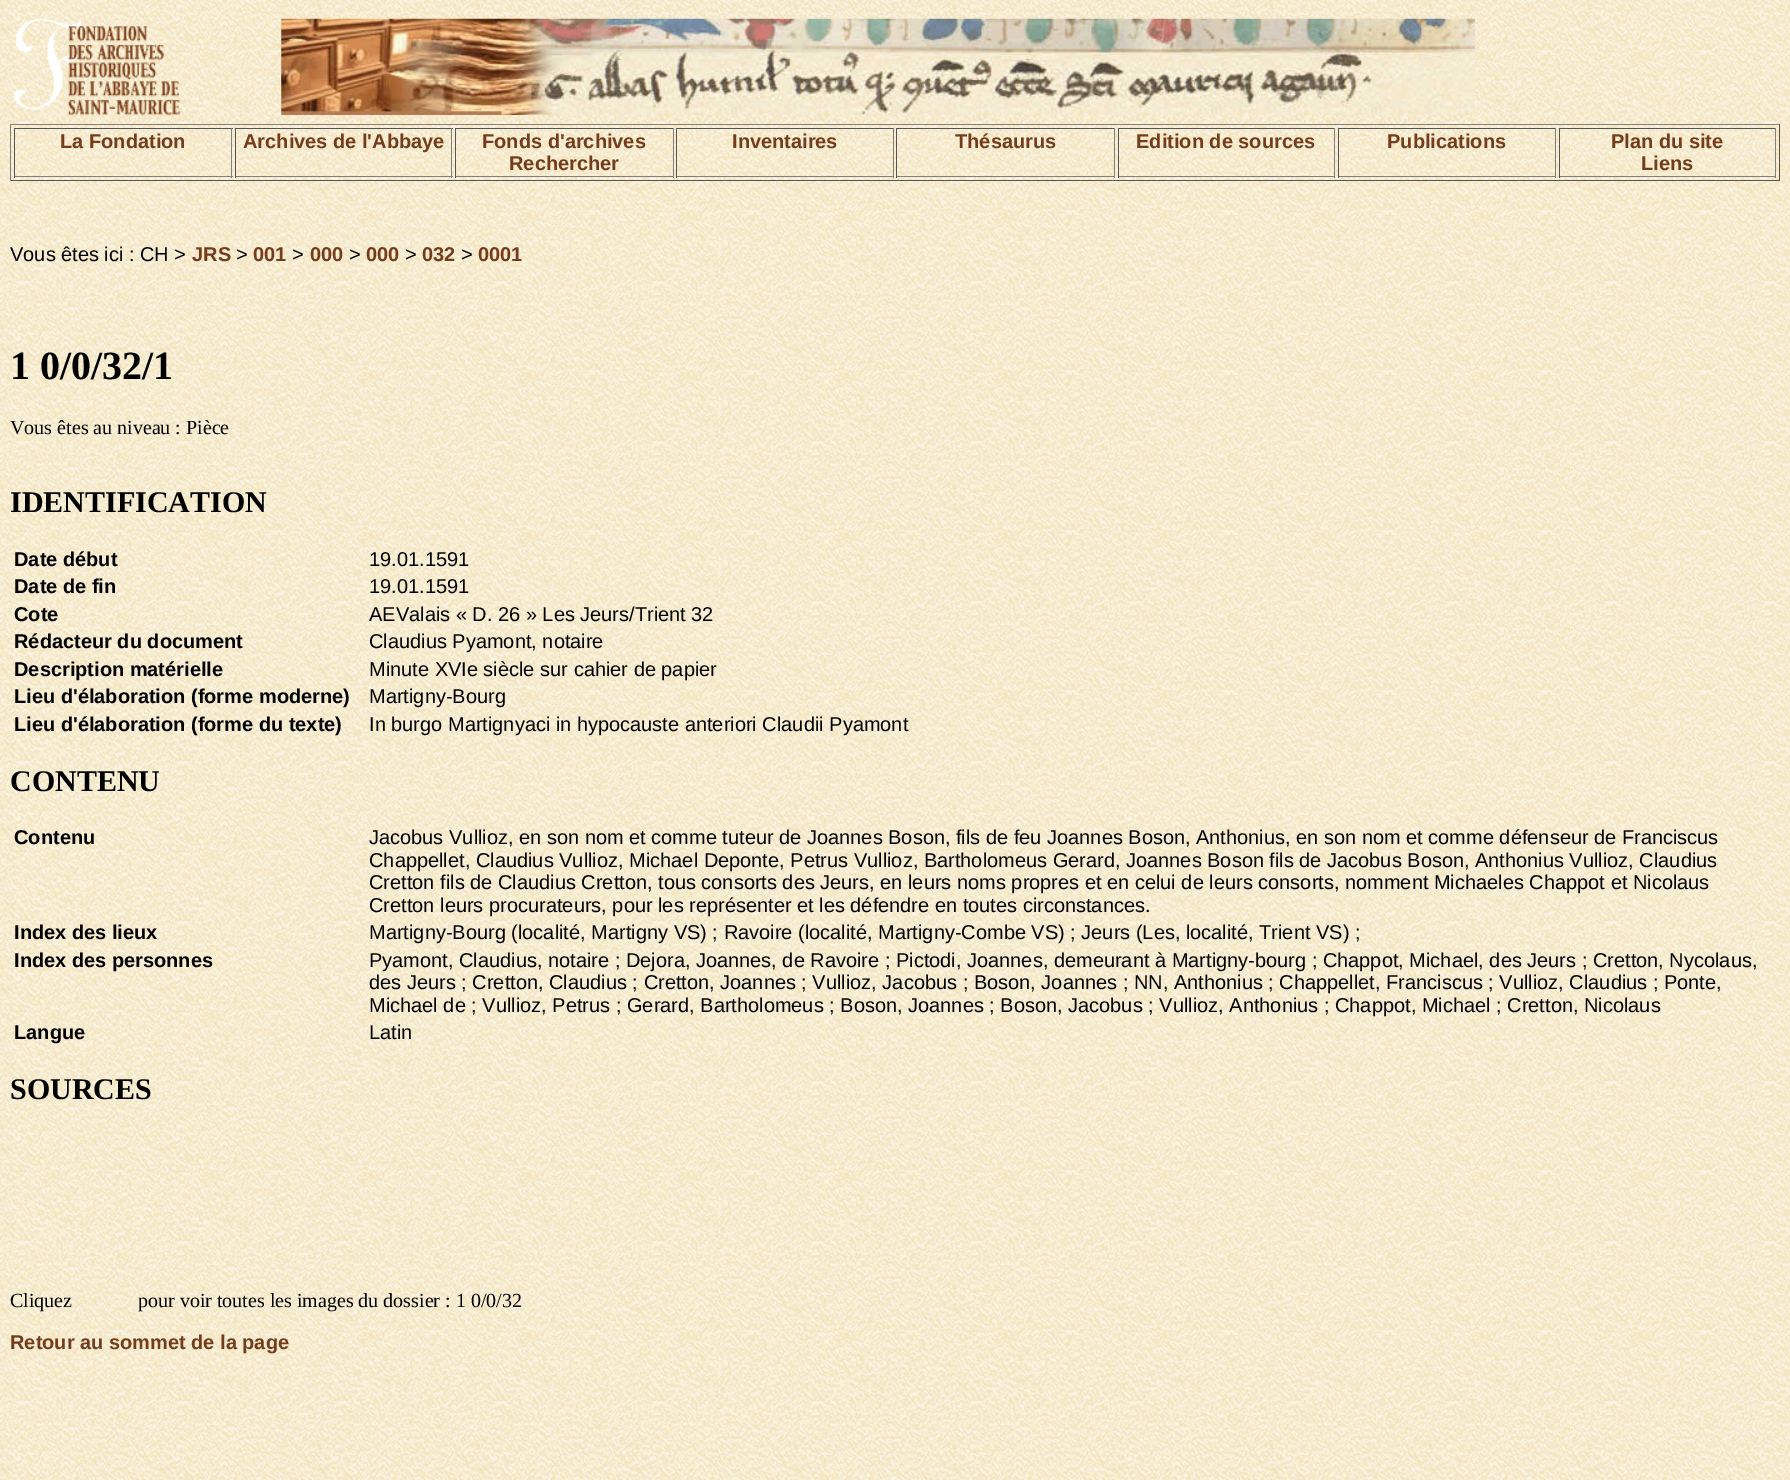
%!PS-Adobe-3.0
%%BoundingBox: 0 0 1790 1480
%%LanguageLevel: 3
%%Pages: 1
%%EndComments
%%BeginProlog
/setink { 3 { 255 div 3 1 roll } repeat setrgbcolor } def
/usefont { [ exch dup neg 0 0 3 -1 roll 0 0 ] selectfont } def
/drawtext { setink usefont moveto show } def
/fillbox { setink rectfill } def
/drawimage { 5 dict begin { /h /w /y /x /name } { exch def } forall
  gsave x y translate w h scale
  w h 8 [w 0 0 h 0 0] name (r) file false 3 colorimage grestore end } def
%%EndProlog
%%BeginSetup
<< /PageSize [1790 1480] >> setpagedevice
%%EndSetup
%%Page: 1 1
0 1480 translate 1 -1 scale
4 setmiterlimit
0 0 1790 1480 255 255 255 fillbox
(assets/img1.rgb) 0 0 1790 1480 drawimage
(assets/img2.rgb) 13 18 168 98 drawimage
(assets/img3.rgb) 281 18 1194 97 drawimage
10 124 1770 1 128 128 128 fillbox
1779 124 1 57 85 85 85 fillbox
10 180 1770 1 85 85 85 fillbox
10 124 1 57 128 128 128 fillbox
14 128 219 1 85 85 85 fillbox
231 128 1 50 128 128 128 fillbox
14 176 219 1 128 128 128 fillbox
14 128 1 50 85 85 85 fillbox
(La Fondation) 60 148 /LiberationSans-Bold 20 116 60 27 drawtext
235 128 218 1 85 85 85 fillbox
451 128 1 50 128 128 128 fillbox
235 176 218 1 128 128 128 fillbox
235 128 1 50 85 85 85 fillbox
(Archives de l'Abbaye) 243 148 /LiberationSans-Bold 20 116 60 27 drawtext
455 128 219 1 85 85 85 fillbox
673 128 1 50 128 128 128 fillbox
455 176 219 1 128 128 128 fillbox
455 128 1 50 85 85 85 fillbox
(Fonds d'archives) 482 148 /LiberationSans-Bold 20 116 60 27 drawtext
(Rechercher) 509 170 /LiberationSans-Bold 20 116 60 27 drawtext
676 128 218 1 85 85 85 fillbox
893 128 1 50 128 128 128 fillbox
676 176 218 1 128 128 128 fillbox
676 128 1 50 85 85 85 fillbox
(Inventaires) 732 148 /LiberationSans-Bold 20 116 60 27 drawtext
896 128 219 1 85 85 85 fillbox
1114 128 1 50 128 128 128 fillbox
896 176 219 1 128 128 128 fillbox
896 128 1 50 85 85 85 fillbox
(Thésaurus) 955 148 /LiberationSans-Bold 20 116 60 27 drawtext
1118 128 217 1 85 85 85 fillbox
1334 128 1 50 128 128 128 fillbox
1118 176 217 1 128 128 128 fillbox
1118 128 1 50 85 85 85 fillbox
(Edition de sources) 1136 148 /LiberationSans-Bold 20 116 60 27 drawtext
1338 128 218 1 85 85 85 fillbox
1555 128 1 50 128 128 128 fillbox
1338 176 218 1 128 128 128 fillbox
1338 128 1 50 85 85 85 fillbox
(Publications) 1387 148 /LiberationSans-Bold 20 116 60 27 drawtext
1559 128 217 1 85 85 85 fillbox
1775 128 1 50 128 128 128 fillbox
1559 176 217 1 128 128 128 fillbox
1559 128 1 50 85 85 85 fillbox
(Plan du site) 1611 148 /LiberationSans-Bold 20 116 60 27 drawtext
(Liens) 1641 170 /LiberationSans-Bold 20 116 60 27 drawtext
(Vous êtes ici : CH >) 10 261 /LiberationSans-Regular 20 0 0 0 drawtext
(JRS) 192 261 /LiberationSans-Bold 20 116 60 27 drawtext
(>) 236 261 /LiberationSans-Regular 20 0 0 0 drawtext
(001) 253 261 /LiberationSans-Bold 20 116 60 27 drawtext
(>) 292 261 /LiberationSans-Regular 20 0 0 0 drawtext
(000) 310 261 /LiberationSans-Bold 20 116 60 27 drawtext
(>) 349 261 /LiberationSans-Regular 20 0 0 0 drawtext
(000) 366 261 /LiberationSans-Bold 20 116 60 27 drawtext
(>) 405 261 /LiberationSans-Regular 20 0 0 0 drawtext
(032) 422 261 /LiberationSans-Bold 20 116 60 27 drawtext
(>) 461 261 /LiberationSans-Regular 20 0 0 0 drawtext
(0001) 478 261 /LiberationSans-Bold 20 116 60 27 drawtext
(1 0/0/32/1) 10 379 /LiberationSerif-Bold 40 0 0 0 drawtext
(Vous êtes au niveau : Pièce) 10 434 /LiberationSerif-Regular 20 0 0 0 drawtext
(IDENTIFICATION) 10 512 /LiberationSerif-Bold 30 0 0 0 drawtext
(Date début) 14 566 /LiberationSans-Bold 20 0 0 0 drawtext
(19.01.1591) 369 566 /LiberationSans-Regular 20 0 0 0 drawtext
(Date de fin) 14 593 /LiberationSans-Bold 20 0 0 0 drawtext
(19.01.1591) 369 593 /LiberationSans-Regular 20 0 0 0 drawtext
(Cote) 14 621 /LiberationSans-Bold 20 0 0 0 drawtext
(AEValais « D. 26 » Les Jeurs/Trient 32) 369 621 /LiberationSans-Regular 20 0 0 0 drawtext
(Rédacteur du document) 14 648 /LiberationSans-Bold 20 0 0 0 drawtext
(Claudius Pyamont, notaire) 369 648 /LiberationSans-Regular 20 0 0 0 drawtext
(Description matérielle) 14 676 /LiberationSans-Bold 20 0 0 0 drawtext
(Minute XVIe siècle sur cahier de papier) 369 676 /LiberationSans-Regular 20 0 0 0 drawtext
(Lieu d'élaboration \(forme moderne\)) 14 703 /LiberationSans-Bold 20 0 0 0 drawtext
(Martigny-Bourg) 369 703 /LiberationSans-Regular 20 0 0 0 drawtext
(Lieu d'élaboration \(forme du texte\)) 14 731 /LiberationSans-Bold 20 0 0 0 drawtext
(In burgo Martignyaci in hypocauste anteriori Claudii Pyamont) 369 731 /LiberationSans-Regular 20 0 0 0 drawtext
(CONTENU) 10 791 /LiberationSerif-Bold 30 0 0 0 drawtext
(Contenu) 14 844 /LiberationSans-Bold 20 0 0 0 drawtext
(Jacobus Vullioz, en son nom et comme tuteur de Joannes Boson, fils de feu Joannes Boson, Anthonius, en son nom et comme défenseur de Franciscus) 369 844 /LiberationSans-Regular 20 0 0 0 drawtext
(Chappellet, Claudius Vullioz, Michael Deponte, Petrus Vullioz, Bartholomeus Gerard, Joannes Boson fils de Jacobus Boson, Anthonius Vullioz, Claudius) 369 867 /LiberationSans-Regular 20 0 0 0 drawtext
(Cretton fils de Claudius Cretton, tous consorts des Jeurs, en leurs noms propres et en celui de leurs consorts, nomment Michaeles Chappot et Nicolaus) 369 889 /LiberationSans-Regular 20 0 0 0 drawtext
(Cretton leurs procurateurs, pour les représenter et les défendre en toutes circonstances.) 369 912 /LiberationSans-Regular 20 0 0 0 drawtext
(Index des lieux) 14 939 /LiberationSans-Bold 20 0 0 0 drawtext
(Martigny-Bourg \(localité, Martigny VS\) ; Ravoire \(localité, Martigny-Combe VS\) ; Jeurs \(Les, localité, Trient VS\) ;) 369 939 /LiberationSans-Regular 20 0 0 0 drawtext
(Index des personnes) 14 967 /LiberationSans-Bold 20 0 0 0 drawtext
(Pyamont, Claudius, notaire ; Dejora, Joannes, de Ravoire ; Pictodi, Joannes, demeurant à Martigny-bourg ; Chappot, Michael, des Jeurs ; Cretton, Nycolaus,) 369 967 /LiberationSans-Regular 20 0 0 0 drawtext
(des Jeurs ; Cretton, Claudius ; Cretton, Joannes ; Vullioz, Jacobus ; Boson, Joannes ; NN, Anthonius ; Chappellet, Franciscus ; Vullioz, Claudius ; Ponte,) 369 989 /LiberationSans-Regular 20 0 0 0 drawtext
(Michael de ; Vullioz, Petrus ; Gerard, Bartholomeus ; Boson, Joannes ; Boson, Jacobus ; Vullioz, Anthonius ; Chappot, Michael ; Cretton, Nicolaus) 369 1012 /LiberationSans-Regular 20 0 0 0 drawtext
(Langue) 14 1039 /LiberationSans-Bold 20 0 0 0 drawtext
(Latin) 369 1039 /LiberationSans-Regular 20 0 0 0 drawtext
(SOURCES) 10 1099 /LiberationSerif-Bold 30 0 0 0 drawtext
(Cliquez) 10 1307 /LiberationSerif-Regular 20 0 0 0 drawtext
(pour voir toutes les images du dossier : 1 0/0/32) 138 1307 /LiberationSerif-Regular 20 0 0 0 drawtext
(Retour au sommet de la page) 10 1349 /LiberationSans-Bold 20 116 60 27 drawtext
showpage
%%EOF
